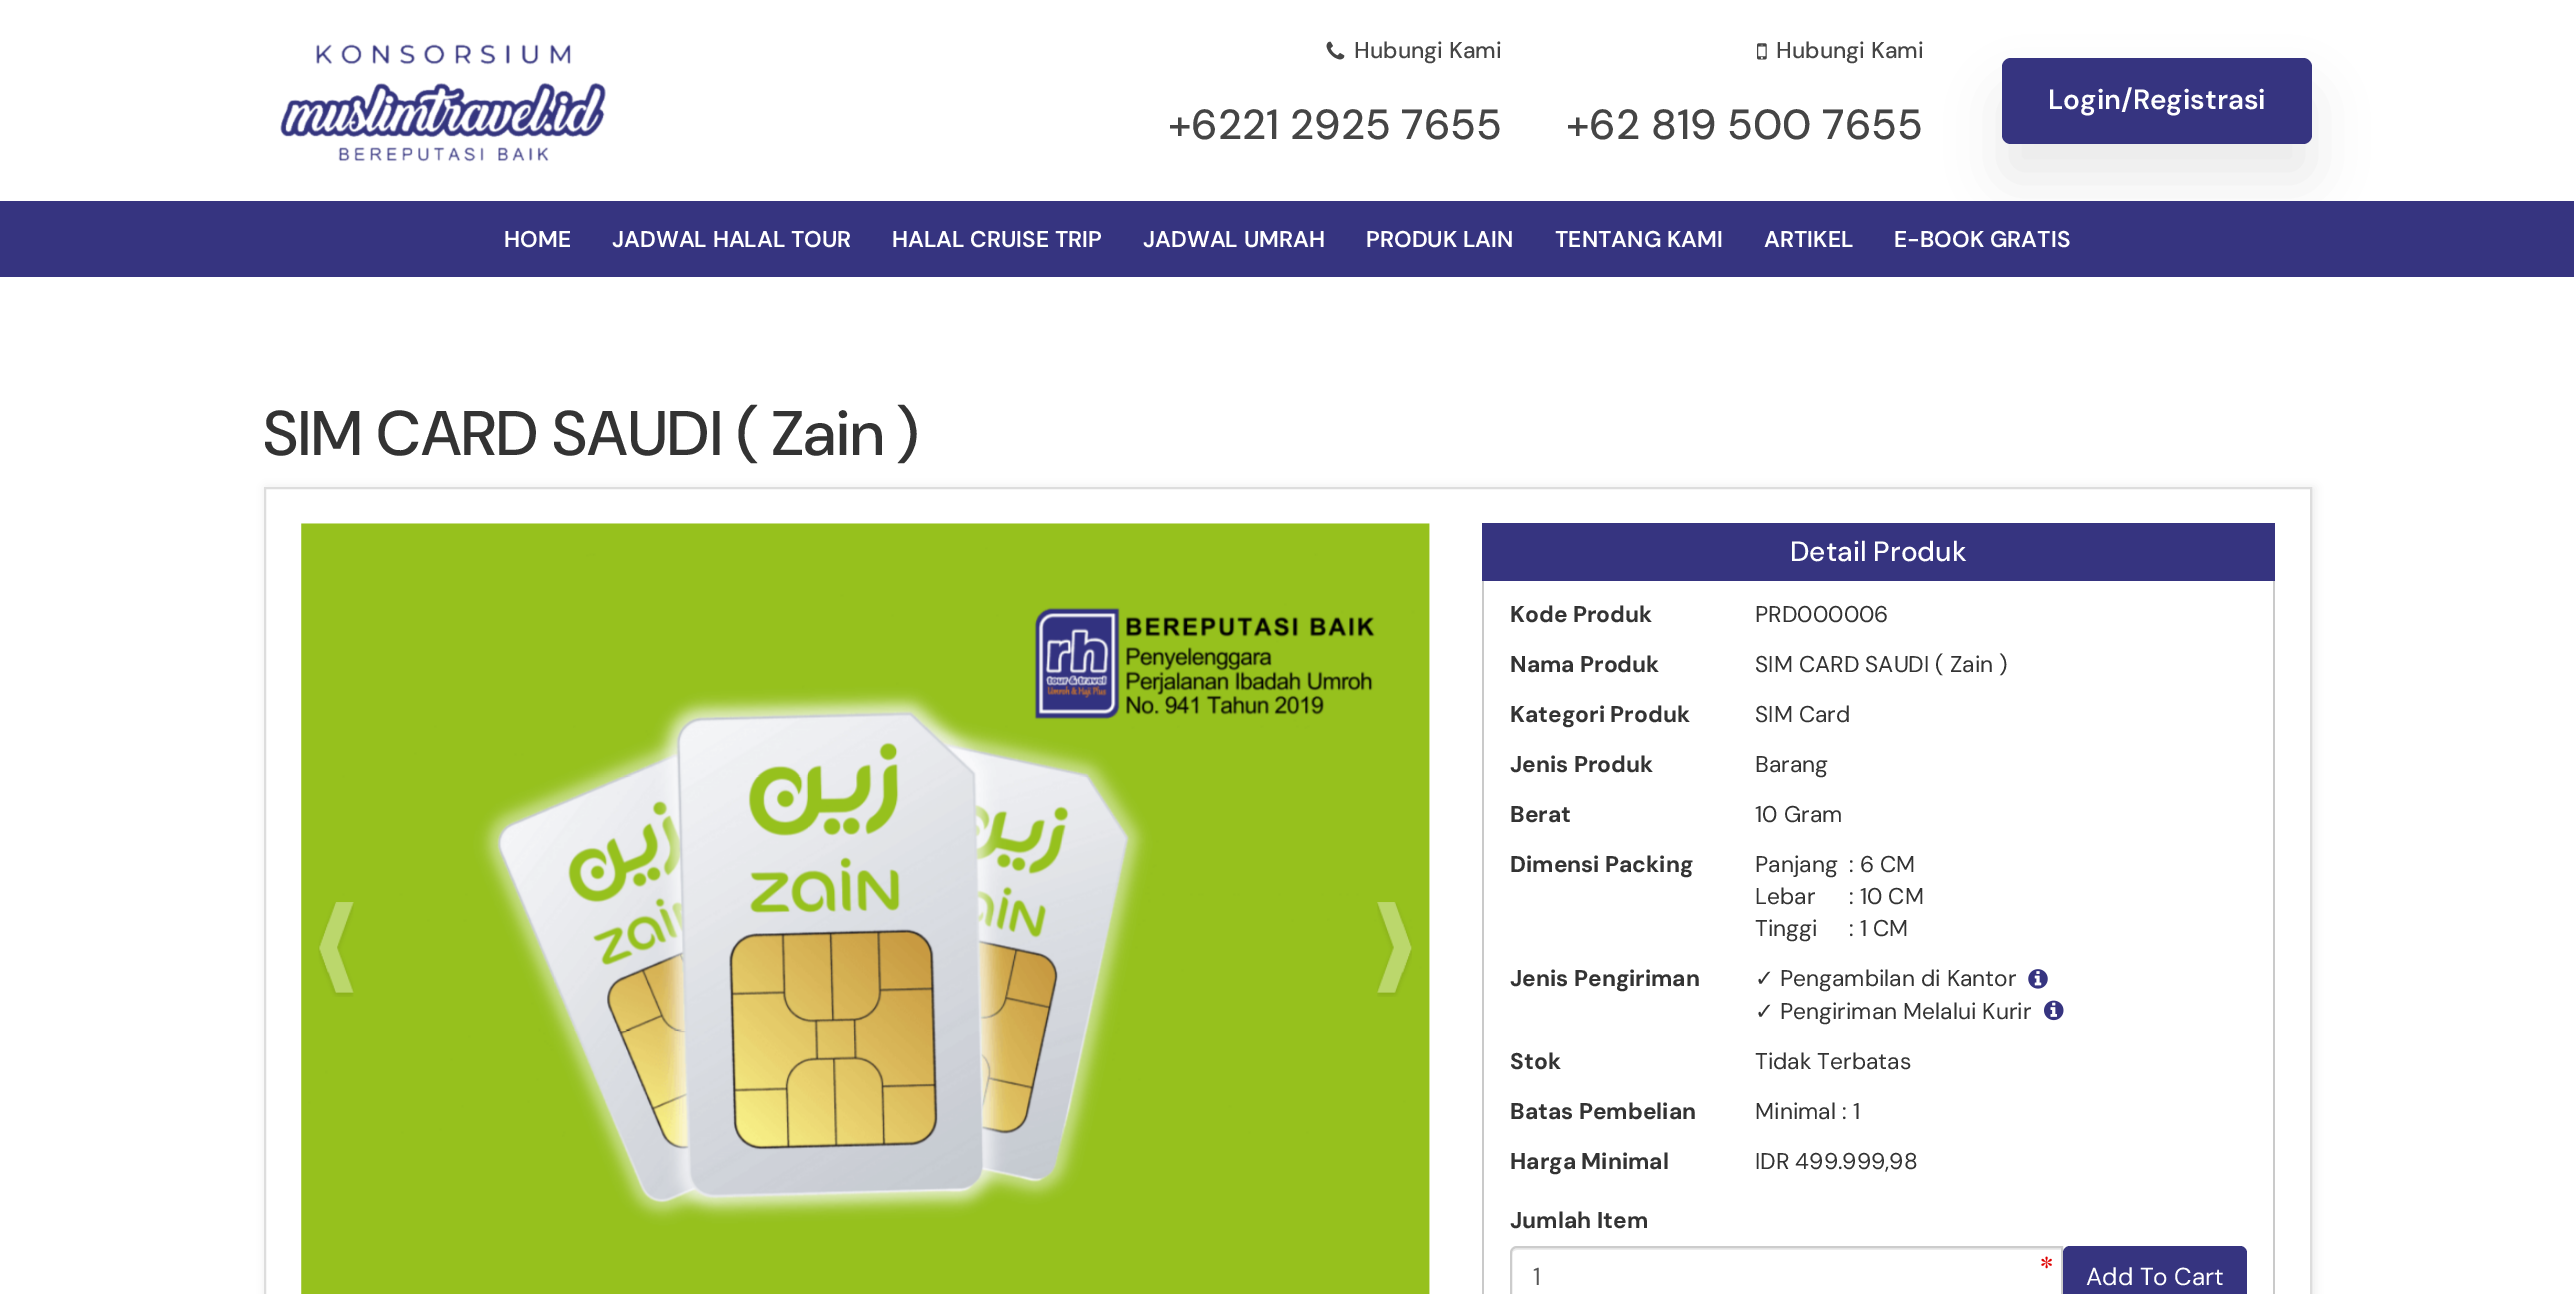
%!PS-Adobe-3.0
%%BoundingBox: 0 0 2574 1294
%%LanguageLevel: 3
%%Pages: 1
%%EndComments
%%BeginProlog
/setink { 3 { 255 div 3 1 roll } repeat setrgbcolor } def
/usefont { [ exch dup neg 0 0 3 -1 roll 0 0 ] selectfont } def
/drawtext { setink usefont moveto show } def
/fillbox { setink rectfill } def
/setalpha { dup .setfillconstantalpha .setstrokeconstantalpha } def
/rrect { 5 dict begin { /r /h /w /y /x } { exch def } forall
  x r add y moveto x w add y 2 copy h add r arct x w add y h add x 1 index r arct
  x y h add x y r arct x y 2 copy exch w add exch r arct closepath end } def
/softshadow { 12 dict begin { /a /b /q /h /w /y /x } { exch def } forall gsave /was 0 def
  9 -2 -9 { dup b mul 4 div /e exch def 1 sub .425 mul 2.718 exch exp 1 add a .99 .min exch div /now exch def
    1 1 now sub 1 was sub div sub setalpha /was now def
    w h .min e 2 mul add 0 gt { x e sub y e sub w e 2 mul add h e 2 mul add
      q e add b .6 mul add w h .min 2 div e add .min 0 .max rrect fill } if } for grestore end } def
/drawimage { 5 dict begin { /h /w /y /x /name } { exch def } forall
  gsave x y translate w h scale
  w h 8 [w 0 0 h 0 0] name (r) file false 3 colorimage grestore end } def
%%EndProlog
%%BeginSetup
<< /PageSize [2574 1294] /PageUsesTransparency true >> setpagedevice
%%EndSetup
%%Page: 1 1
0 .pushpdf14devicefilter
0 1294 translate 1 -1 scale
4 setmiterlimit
0 0 2574 1294 255 255 255 fillbox
(assets/img1.rgb) 280 44 326 118 drawimage
(assets/img2.rgb) 1326 41 19 19 drawimage
(Hubungi Kami) 1354 58 /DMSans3-Medium 22.75 69 69 69 drawtext
(+6221 2925 7655) 1168 139 /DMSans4-Medium 42 69 69 69 drawtext
(assets/img3.rgb) 1757 43 10 17 drawimage
(Hubungi Kami) 1776 58 /DMSans3-Medium 22.75 69 69 69 drawtext
(+62 819 500 7655) 1566 139 /DMSans4-Medium 42 69 69 69 drawtext
56 56 56 setink
2002 93 310 86 9 26 0.1 softshadow
54 52 128 setink
2002 58 310 86 9 rrect fill
(Login/Registrasi) 2048 109 /DMSans-SemiBold 28 255 255 255 drawtext
0 201 2574 76 54 52 128 fillbox
(HOME) 504 247 /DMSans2-SemiBold 22.75 255 255 255 drawtext
(JADWAL HALAL TOUR) 612 247 /DMSans2-SemiBold 22.75 255 255 255 drawtext
(HALAL CRUISE TRIP) 892 247 /DMSans2-SemiBold 22.75 255 255 255 drawtext
(JADWAL UMRAH) 1143 247 /DMSans2-SemiBold 22.75 255 255 255 drawtext
(PRODUK LAIN) 1366 247 /DMSans2-SemiBold 22.75 255 255 255 drawtext
(TENTANG KAMI) 1555 247 /DMSans2-SemiBold 22.75 255 255 255 drawtext
(ARTIKEL) 1764 247 /DMSans2-SemiBold 22.75 255 255 255 drawtext
(E-BOOK GRATIS) 1894 247 /DMSans2-SemiBold 22.75 255 255 255 drawtext
(SIM CARD SAUDI \( Zain \)) 263 455 /DMSans-Medium 63 51 51 51 drawtext
0 0 0 setink
266 488 2048 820 0 4.5 0.08 softshadow
255 255 255 setink
265 488 moveto 2311 488 lineto 2311 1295 lineto 265 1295 lineto closepath gsave fill grestore
221 221 221 setink
2 setlinewidth
stroke
(assets/img4.rgb) 301 523 1129 771 drawimage
(assets/img5.rgb) 318 902 36 95 drawimage
(assets/img6.rgb) 1377 902 35 95 drawimage
1482 523 793 58 54 52 128 fillbox
(Detail Produk) 1790 561 /DMSans2-Medium 28 255 255 255 drawtext
2273 581 2 713 202 202 202 fillbox
1482 581 2 713 202 202 202 fillbox
(Kode Produk) 1510 622 /DMSans-Bold 22.75 51 51 51 drawtext
(PRD000006) 1755 622 /DMSans-Regular 22.75 51 51 51 drawtext
(Nama Produk) 1510 672 /DMSans-Bold 22.75 51 51 51 drawtext
(SIM CARD SAUDI \( Zain \)) 1755 672 /DMSans-Regular 22.75 51 51 51 drawtext
(Kategori Produk) 1510 722 /DMSans-Bold 22.75 51 51 51 drawtext
(SIM Card) 1755 722 /DMSans-Regular 22.75 51 51 51 drawtext
(Jenis Produk) 1510 772 /DMSans-Bold 22.75 51 51 51 drawtext
(Barang) 1755 772 /DMSans-Regular 22.75 51 51 51 drawtext
(Berat) 1510 822 /DMSans-Bold 22.75 51 51 51 drawtext
(10 Gram) 1755 822 /DMSans-Regular 22.75 51 51 51 drawtext
(Dimensi Packing) 1510 872 /DMSans-Bold 22.75 51 51 51 drawtext
(Panjang) 1755 872 /DMSans-Regular 22.75 51 51 51 drawtext
(: 6 CM) 1849 872 /DMSans-Regular 22.75 51 51 51 drawtext
(Lebar) 1755 904 /DMSans-Regular 22.75 51 51 51 drawtext
(: 10 CM) 1849 904 /DMSans-Regular 22.75 51 51 51 drawtext
(Tinggi) 1755 936 /DMSans-Regular 22.75 51 51 51 drawtext
(: 1 CM) 1849 936 /DMSans-Regular 22.75 51 51 51 drawtext
(Jenis Pengiriman) 1510 986 /DMSans-Bold 22.75 51 51 51 drawtext
(✓) 1755 986 /DejaVuSans-Regular 22.75 51 51 51 drawtext
(Pengambilan di Kantor) 1780 986 /DMSans-Regular 22.75 51 51 51 drawtext
(assets/img7.rgb) 2028 969 20 20 drawimage
(✓) 1755 1019 /DejaVuSans-Regular 22.75 51 51 51 drawtext
(Pengiriman Melalui Kurir) 1780 1019 /DMSans-Regular 22.75 51 51 51 drawtext
(assets/img8.rgb) 2044 1000 20 21 drawimage
(Stok) 1510 1069 /DMSans-Bold 22.75 51 51 51 drawtext
(Tidak Terbatas) 1755 1069 /DMSans-Regular 22.75 51 51 51 drawtext
(Batas Pembelian) 1510 1119 /DMSans-Bold 22.75 51 51 51 drawtext
(Minimal : 1) 1755 1119 /DMSans-Regular 22.75 51 51 51 drawtext
(Harga Minimal) 1510 1169 /DMSans-Bold 22.75 51 51 51 drawtext
(IDR 499.999,98) 1755 1169 /DMSans-Regular 22.75 51 51 51 drawtext
(Jumlah Item) 1510 1228 /DMSans-Bold 22.75 51 51 51 drawtext
(assets/img9.rgb) 2041 1256 11 13 drawimage
236 236 236 setink
1517 1250 moveto 2062 1250 lineto 2062 1248 lineto 1517 1248 lineto 1513 1248 1512 1252 1512 1255 curveto 1512 1252 1514 1250 1517 1250 curveto closepath fill
204 204 204 setink
1517 1247 moveto 2062 1247 lineto 2062 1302 lineto 1517 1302 lineto 1513.5 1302 1511 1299.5 1511 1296 curveto 1511 1253 lineto 1511 1249.5 1513.5 1247 1517 1247 curveto closepath stroke
(1) 1533 1285 /DMSans2-Regular 24.5 85 85 85 drawtext
54 52 128 setink
2063 1246 184 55 7 rrect fill
(Add To Cart) 2086 1285 /DMSans2-Regular 24.5 255 255 255 drawtext
.poppdf14devicefilter showpage
%%EOF
